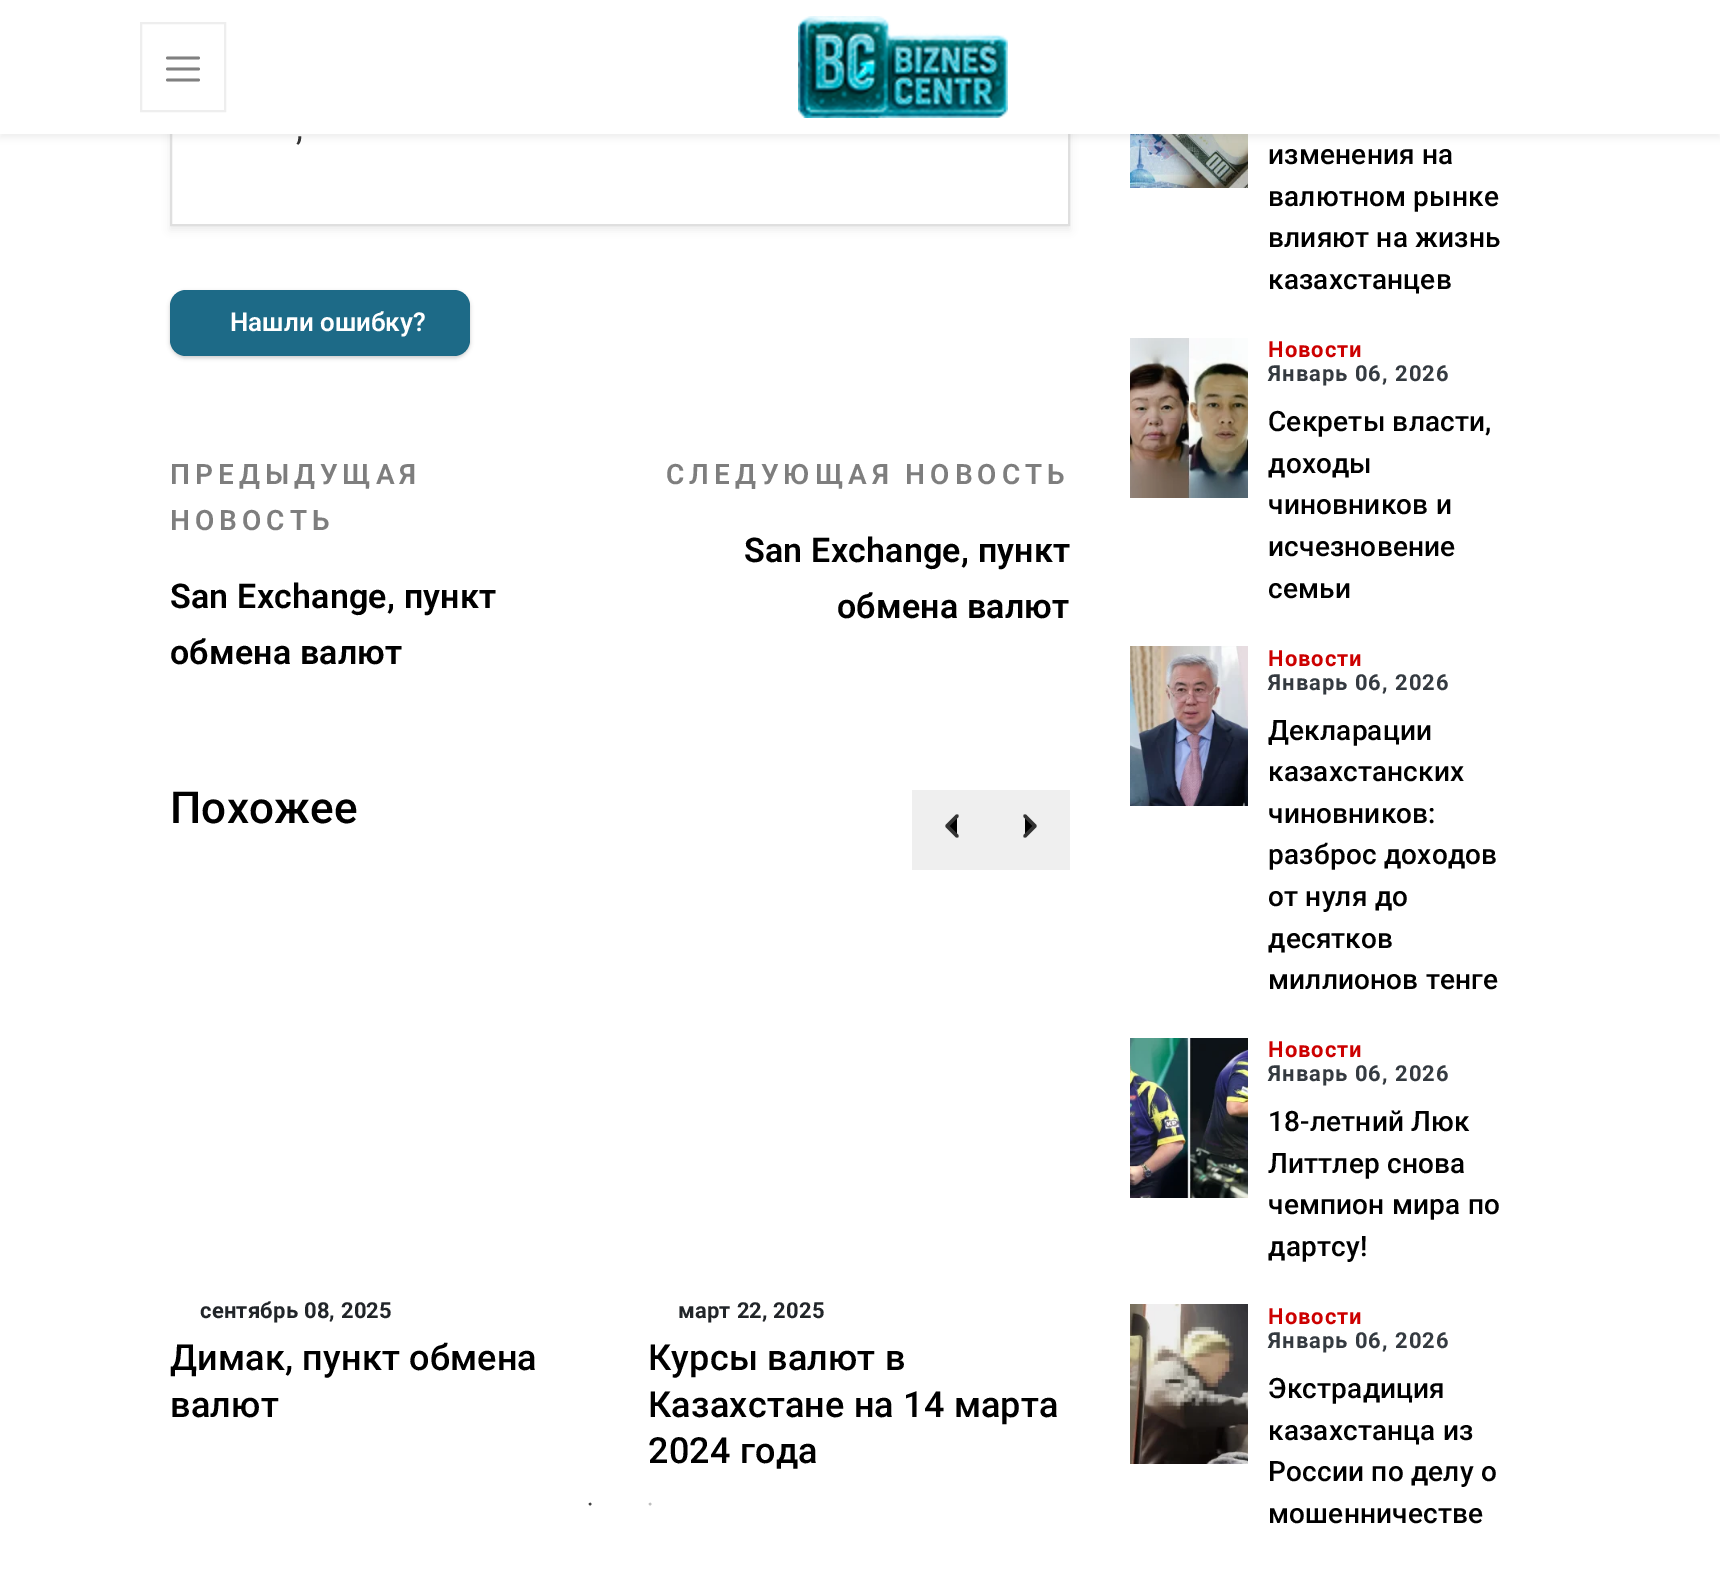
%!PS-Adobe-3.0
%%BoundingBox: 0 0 1720 1587
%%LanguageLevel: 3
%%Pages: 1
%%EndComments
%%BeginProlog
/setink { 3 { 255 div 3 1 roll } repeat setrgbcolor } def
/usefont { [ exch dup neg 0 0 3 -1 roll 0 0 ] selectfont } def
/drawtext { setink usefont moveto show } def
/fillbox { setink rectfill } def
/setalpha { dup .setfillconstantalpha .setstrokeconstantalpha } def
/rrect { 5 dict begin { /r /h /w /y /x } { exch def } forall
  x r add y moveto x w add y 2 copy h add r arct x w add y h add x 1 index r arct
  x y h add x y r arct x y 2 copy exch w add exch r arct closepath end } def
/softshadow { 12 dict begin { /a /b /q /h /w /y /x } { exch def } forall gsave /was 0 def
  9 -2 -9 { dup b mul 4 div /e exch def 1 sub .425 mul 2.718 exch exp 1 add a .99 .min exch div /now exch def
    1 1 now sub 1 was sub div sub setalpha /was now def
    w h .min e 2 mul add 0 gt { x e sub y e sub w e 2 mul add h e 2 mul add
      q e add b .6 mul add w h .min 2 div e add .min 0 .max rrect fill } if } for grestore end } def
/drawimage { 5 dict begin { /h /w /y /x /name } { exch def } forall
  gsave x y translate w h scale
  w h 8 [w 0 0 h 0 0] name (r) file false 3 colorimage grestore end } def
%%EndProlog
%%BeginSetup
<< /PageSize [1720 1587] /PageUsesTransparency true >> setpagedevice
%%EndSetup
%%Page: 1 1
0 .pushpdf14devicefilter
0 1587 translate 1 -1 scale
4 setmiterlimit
0 0 1720 1587 255 255 255 fillbox
gsave
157 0 moveto 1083 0 lineto 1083 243 lineto 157 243 lineto closepath 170 -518 moveto 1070 -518 lineto 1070 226 lineto 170 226 lineto closepath eoclip newpath
0 0 0 setink
170 -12 900 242 0 4 0.07 softshadow
grestore
223 223 223 setink
2 setlinewidth
171 -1 898 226 rectstroke
(assets/img2.rgb) 1130 134 118 54 drawimage
100 100 100 setink
0 4 1720 134 0 3 0.1 softshadow
0 0 1720 134 255 255 255 fillbox
238 238 238 setink
141 23 84 88 rectstroke
128 128 128 setink
2.8 setlinewidth
1 setlinecap
167.5 58 moveto 198.5 58 lineto 167.5 69 moveto 198.5 69 lineto 167.5 80 moveto 198.5 80 lineto stroke
(assets/img1.rgb) 798 16 210 102 drawimage
/Roboto-Regular 34 usefont
51 51 51 setink
296 140 moveto 0.2 0 (,) ashow
gsave
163 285 moveto 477 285 lineto 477 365 lineto 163 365 lineto closepath 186 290 moveto 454 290 lineto 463 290 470 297 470 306 curveto 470 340 lineto 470 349 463 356 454 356 curveto 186 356 lineto 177 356 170 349 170 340 curveto 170 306 lineto 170 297 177 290 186 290 curveto closepath eoclip newpath
0 0 0 setink
170 292 300 66 16 2 0.2 softshadow
grestore
0.93 setalpha
12 95 126 setink
170 290 300 66 16 rrect fill
1 setalpha
(Нашли ошибку?) 230 331 /Roboto-SemiBold 26 255 255 255 drawtext
/Roboto-SemiBold 28 usefont
126 126 126 setink
170 484 moveto 5 0 (ПРЕДЫДУЩАЯ) ashow
170 530 moveto 5 0 (НОВОСТЬ) ashow
/Roboto-SemiBold 34 usefont
0 0 0 setink
170 608 moveto 0.2 0 (San Exchange, пункт) ashow
170 664 moveto 0.2 0 (обмена валют) ashow
/Roboto-SemiBold 28 usefont
126 126 126 setink
666 484 moveto 5 0 (СЛЕДУЮЩАЯ НОВОСТЬ) ashow
/Roboto-SemiBold 34 usefont
0 0 0 setink
744 562 moveto 0.2 0 (San Exchange, пункт) ashow
837 618 moveto 0.2 0 (обмена валют) ashow
/Roboto-Medium 44 usefont
170 823 moveto 0.2 0 (Похожее) ashow
912 790 158 80 239 239 239 fillbox
0 0 0 setink
957 816 moveto 947 826 lineto 957 836 lineto gsave fill grestore
51 51 51 setink
3.3 setlinewidth
1 setlinejoin
stroke
0 0 0 setink
1025 816 moveto 1035 826 lineto 1025 836 lineto gsave fill grestore
51 51 51 setink
stroke
/Roboto-Bold 22 usefont
33 37 41 setink
200 1318 moveto 0.2 0 (сентябрь 08, 2025) ashow
/Roboto-Medium 36 usefont
0 0 0 setink
170 1370 moveto 0.2 0 (Димак, пункт обмена) ashow
170 1417 moveto 0.2 0 (валют) ashow
/Roboto-Bold 22 usefont
33 37 41 setink
678 1318 moveto 0.2 0 (март 22, 2025) ashow
/Roboto-Medium 36 usefont
0 0 0 setink
648 1370 moveto 0.2 0 (Курсы валют в) ashow
648 1417 moveto 0.2 0 (Казахстане на 14 марта) ashow
648 1463 moveto 0.2 0 (2024 года) ashow
(•) 588 1508 /LiberationSerif-Regular 12 64 64 64 drawtext
(•) 648 1508 /LiberationSerif-Regular 12 191 191 191 drawtext
/Roboto-Medium 28 usefont
0 0 0 setink
1268 164 moveto 0.2 0 (изменения на) ashow
1268 206 moveto 0.2 0 (валютном рынке) ashow
1268 247 moveto 0.2 0 (влияют на жизнь) ashow
1268 289 moveto 0.2 0 (казахстанцев) ashow
(assets/img3.rgb) 1130 338 118 160 drawimage
/Roboto-Bold 22 usefont
204 0 0 setink
1268 357 moveto 1 0 (Новости) ashow
52 58 64 setink
1268 381 moveto 1 0 (Январь 06, 2026) ashow
/Roboto-Medium 28 usefont
0 0 0 setink
1268 431 moveto 0.2 0 (Секреты власти,) ashow
1268 473 moveto 0.2 0 (доходы) ashow
1268 514 moveto 0.2 0 (чиновников и) ashow
1268 556 moveto 0.2 0 (исчезновение) ashow
1268 598 moveto 0.2 0 (семьи) ashow
(assets/img4.rgb) 1130 646 118 160 drawimage
/Roboto-Bold 22 usefont
204 0 0 setink
1268 666 moveto 1 0 (Новости) ashow
52 58 64 setink
1268 690 moveto 1 0 (Январь 06, 2026) ashow
/Roboto-Medium 28 usefont
0 0 0 setink
1268 740 moveto 0.2 0 (Декларации) ashow
1268 781 moveto 0.2 0 (казахстанских) ashow
1268 823 moveto 0.2 0 (чиновников:) ashow
1268 864 moveto 0.2 0 (разброс доходов) ashow
1268 906 moveto 0.2 0 (от нуля до) ashow
1268 948 moveto 0.2 0 (десятков) ashow
1268 989 moveto 0.2 0 (миллионов тенге) ashow
(assets/img5.rgb) 1130 1038 118 160 drawimage
/Roboto-Bold 22 usefont
204 0 0 setink
1268 1057 moveto 1 0 (Новости) ashow
52 58 64 setink
1268 1081 moveto 1 0 (Январь 06, 2026) ashow
/Roboto-Medium 28 usefont
0 0 0 setink
1268 1131 moveto 0.2 0 (18-летний Люк) ashow
1268 1173 moveto 0.2 0 (Литтлер снова) ashow
1268 1214 moveto 0.2 0 (чемпион мира по) ashow
1268 1256 moveto 0.2 0 (дартсу!) ashow
(assets/img6.rgb) 1130 1304 118 160 drawimage
/Roboto-Bold 22 usefont
204 0 0 setink
1268 1324 moveto 1 0 (Новости) ashow
52 58 64 setink
1268 1348 moveto 1 0 (Январь 06, 2026) ashow
/Roboto-Medium 28 usefont
0 0 0 setink
1268 1398 moveto 0.2 0 (Экстрадиция) ashow
1268 1440 moveto 0.2 0 (казахстанца из) ashow
1268 1481 moveto 0.2 0 (России по делу о) ashow
1268 1523 moveto 0.2 0 (мошенничестве) ashow
.poppdf14devicefilter showpage
%%EOF
